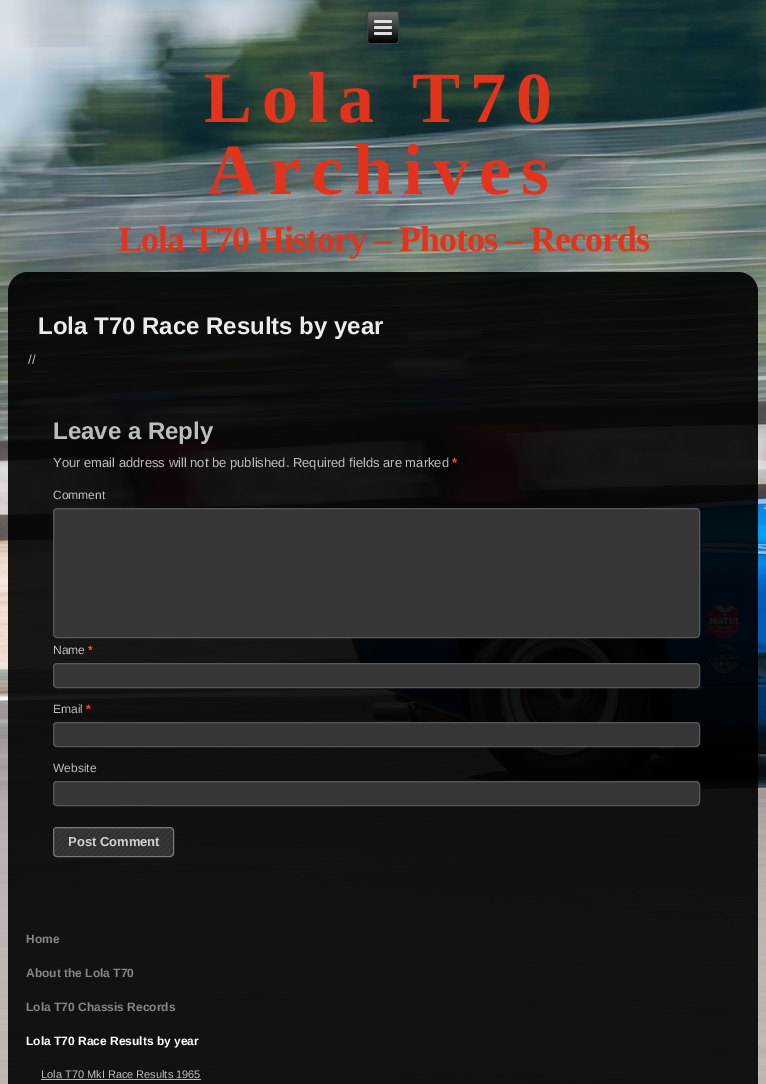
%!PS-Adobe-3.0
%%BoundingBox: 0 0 766 1084
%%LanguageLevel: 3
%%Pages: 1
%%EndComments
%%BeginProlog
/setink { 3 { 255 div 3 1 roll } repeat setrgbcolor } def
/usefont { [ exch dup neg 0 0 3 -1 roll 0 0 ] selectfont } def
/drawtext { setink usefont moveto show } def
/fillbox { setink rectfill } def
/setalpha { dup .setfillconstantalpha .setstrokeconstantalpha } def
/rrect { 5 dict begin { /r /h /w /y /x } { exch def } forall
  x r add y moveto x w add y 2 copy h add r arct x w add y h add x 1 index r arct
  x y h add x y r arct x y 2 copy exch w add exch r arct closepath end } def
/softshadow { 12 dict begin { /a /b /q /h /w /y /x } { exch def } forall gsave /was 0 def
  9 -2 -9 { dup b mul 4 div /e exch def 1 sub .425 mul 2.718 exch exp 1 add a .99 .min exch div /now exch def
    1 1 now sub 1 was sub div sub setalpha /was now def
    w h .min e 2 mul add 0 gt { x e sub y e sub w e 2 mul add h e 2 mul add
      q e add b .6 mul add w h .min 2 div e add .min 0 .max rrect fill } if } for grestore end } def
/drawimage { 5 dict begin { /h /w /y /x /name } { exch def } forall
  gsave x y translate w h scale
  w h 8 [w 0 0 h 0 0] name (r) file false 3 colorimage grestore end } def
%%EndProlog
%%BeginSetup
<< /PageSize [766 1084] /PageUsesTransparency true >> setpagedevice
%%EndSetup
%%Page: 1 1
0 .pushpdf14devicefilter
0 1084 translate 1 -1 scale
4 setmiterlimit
0 0 766 1084 255 255 255 fillbox
(assets/img1.rgb) 0 0 766 1084 drawimage
0 0 0 setink
367 11 32 33 3 1.5 0.2 softshadow
gsave
367 11 32 33 3 rrect clip newpath
gsave 367 12 moveto 399 12 lineto 399 43 lineto 367 43 lineto closepath clip newpath
<< /ShadingType 2 /ColorSpace /DeviceRGB /Coords [383 12 383 43] /Extend [true true] /Function << /FunctionType 2 /Domain [0 1] /C0 [0.439 0.439 0.439] /C1 [0 0 0] /N 1 >> >> shfill grestore
grestore
64 64 64 setink
367.5 11.5 31 32 2.5 rrect stroke
224 224 224 setink
374 20 18 3 1.5 rrect fill
374 26 18 3 1.5 rrect fill
374 32 18 3 1.5 rrect fill
/LiberationSerif-Bold 72 usefont
226 52 29 setink
204 122 moveto 10 0 (Lola T70) ashow
207 194 moveto 10 0 (Archives) ashow
/LiberationSerif-Bold 36 usefont
118 251 moveto -1 0 (Lola T70 History – Photos – Records) ashow
0.9 setalpha
0 0 0 setink
8 272 750 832 20 rrect fill
1 setalpha
(Lola T70 Race Results by year) 38 334 /LiberationSans-Bold 24 235 235 235 drawtext
(//) 28 364 /LiberationSans-Regular 13 189 189 189 drawtext
(Leave a Reply) 53 439 /LiberationSans-Bold 24 189 189 189 drawtext
(Your email address will not be published. Required fields are marked) 53 467 /LiberationSans-Regular 13 189 189 189 drawtext
(*) 452 467 /LiberationSans-Bold 13 255 75 51 drawtext
(Comment) 53 499 /LiberationSans-Regular 12 189 189 189 drawtext
54 54 54 setink
53.5 508.5 646 129 3.5 rrect gsave fill grestore
89 89 89 setink
stroke
(Name) 53 654 /LiberationSans-Regular 12 189 189 189 drawtext
(*) 88 654 /LiberationSans-Bold 12 255 75 51 drawtext
54 54 54 setink
53.5 663.5 646 24 3.5 rrect gsave fill grestore
89 89 89 setink
stroke
(Email) 53 713 /LiberationSans-Regular 12 189 189 189 drawtext
(*) 86 713 /LiberationSans-Bold 12 255 75 51 drawtext
54 54 54 setink
53.5 722.5 646 24 3.5 rrect gsave fill grestore
89 89 89 setink
stroke
(Website) 53 772 /LiberationSans-Regular 12 189 189 189 drawtext
54 54 54 setink
53.5 781.5 646 24 3.5 rrect gsave fill grestore
89 89 89 setink
stroke
49 49 48 setink
53 827 121 30 4 rrect fill
(assets/img2.rgb) 53 827 121 30 drawimage
0.6 setalpha
166 166 166 setink
53.5 827.5 120 29 3.5 rrect stroke
1 setalpha
(Post Comment) 68 846 /LiberationSans-Bold 13 209 209 209 drawtext
(Home) 26 943 /LiberationSans-Bold 12 133 133 133 drawtext
(About the Lola T70) 26 977 /LiberationSans-Bold 12 133 133 133 drawtext
(Lola T70 Chassis Records) 26 1011 /LiberationSans-Bold 12 133 133 133 drawtext
(Lola T70 Race Results by year) 26 1045 /LiberationSans-Bold 12 255 255 255 drawtext
(Lola T70 MkI Race Results 1965) 41 1078 /LiberationSans-Regular 11 189 189 189 drawtext
41 1079 160 1 189 189 189 fillbox
.poppdf14devicefilter showpage
%%EOF
